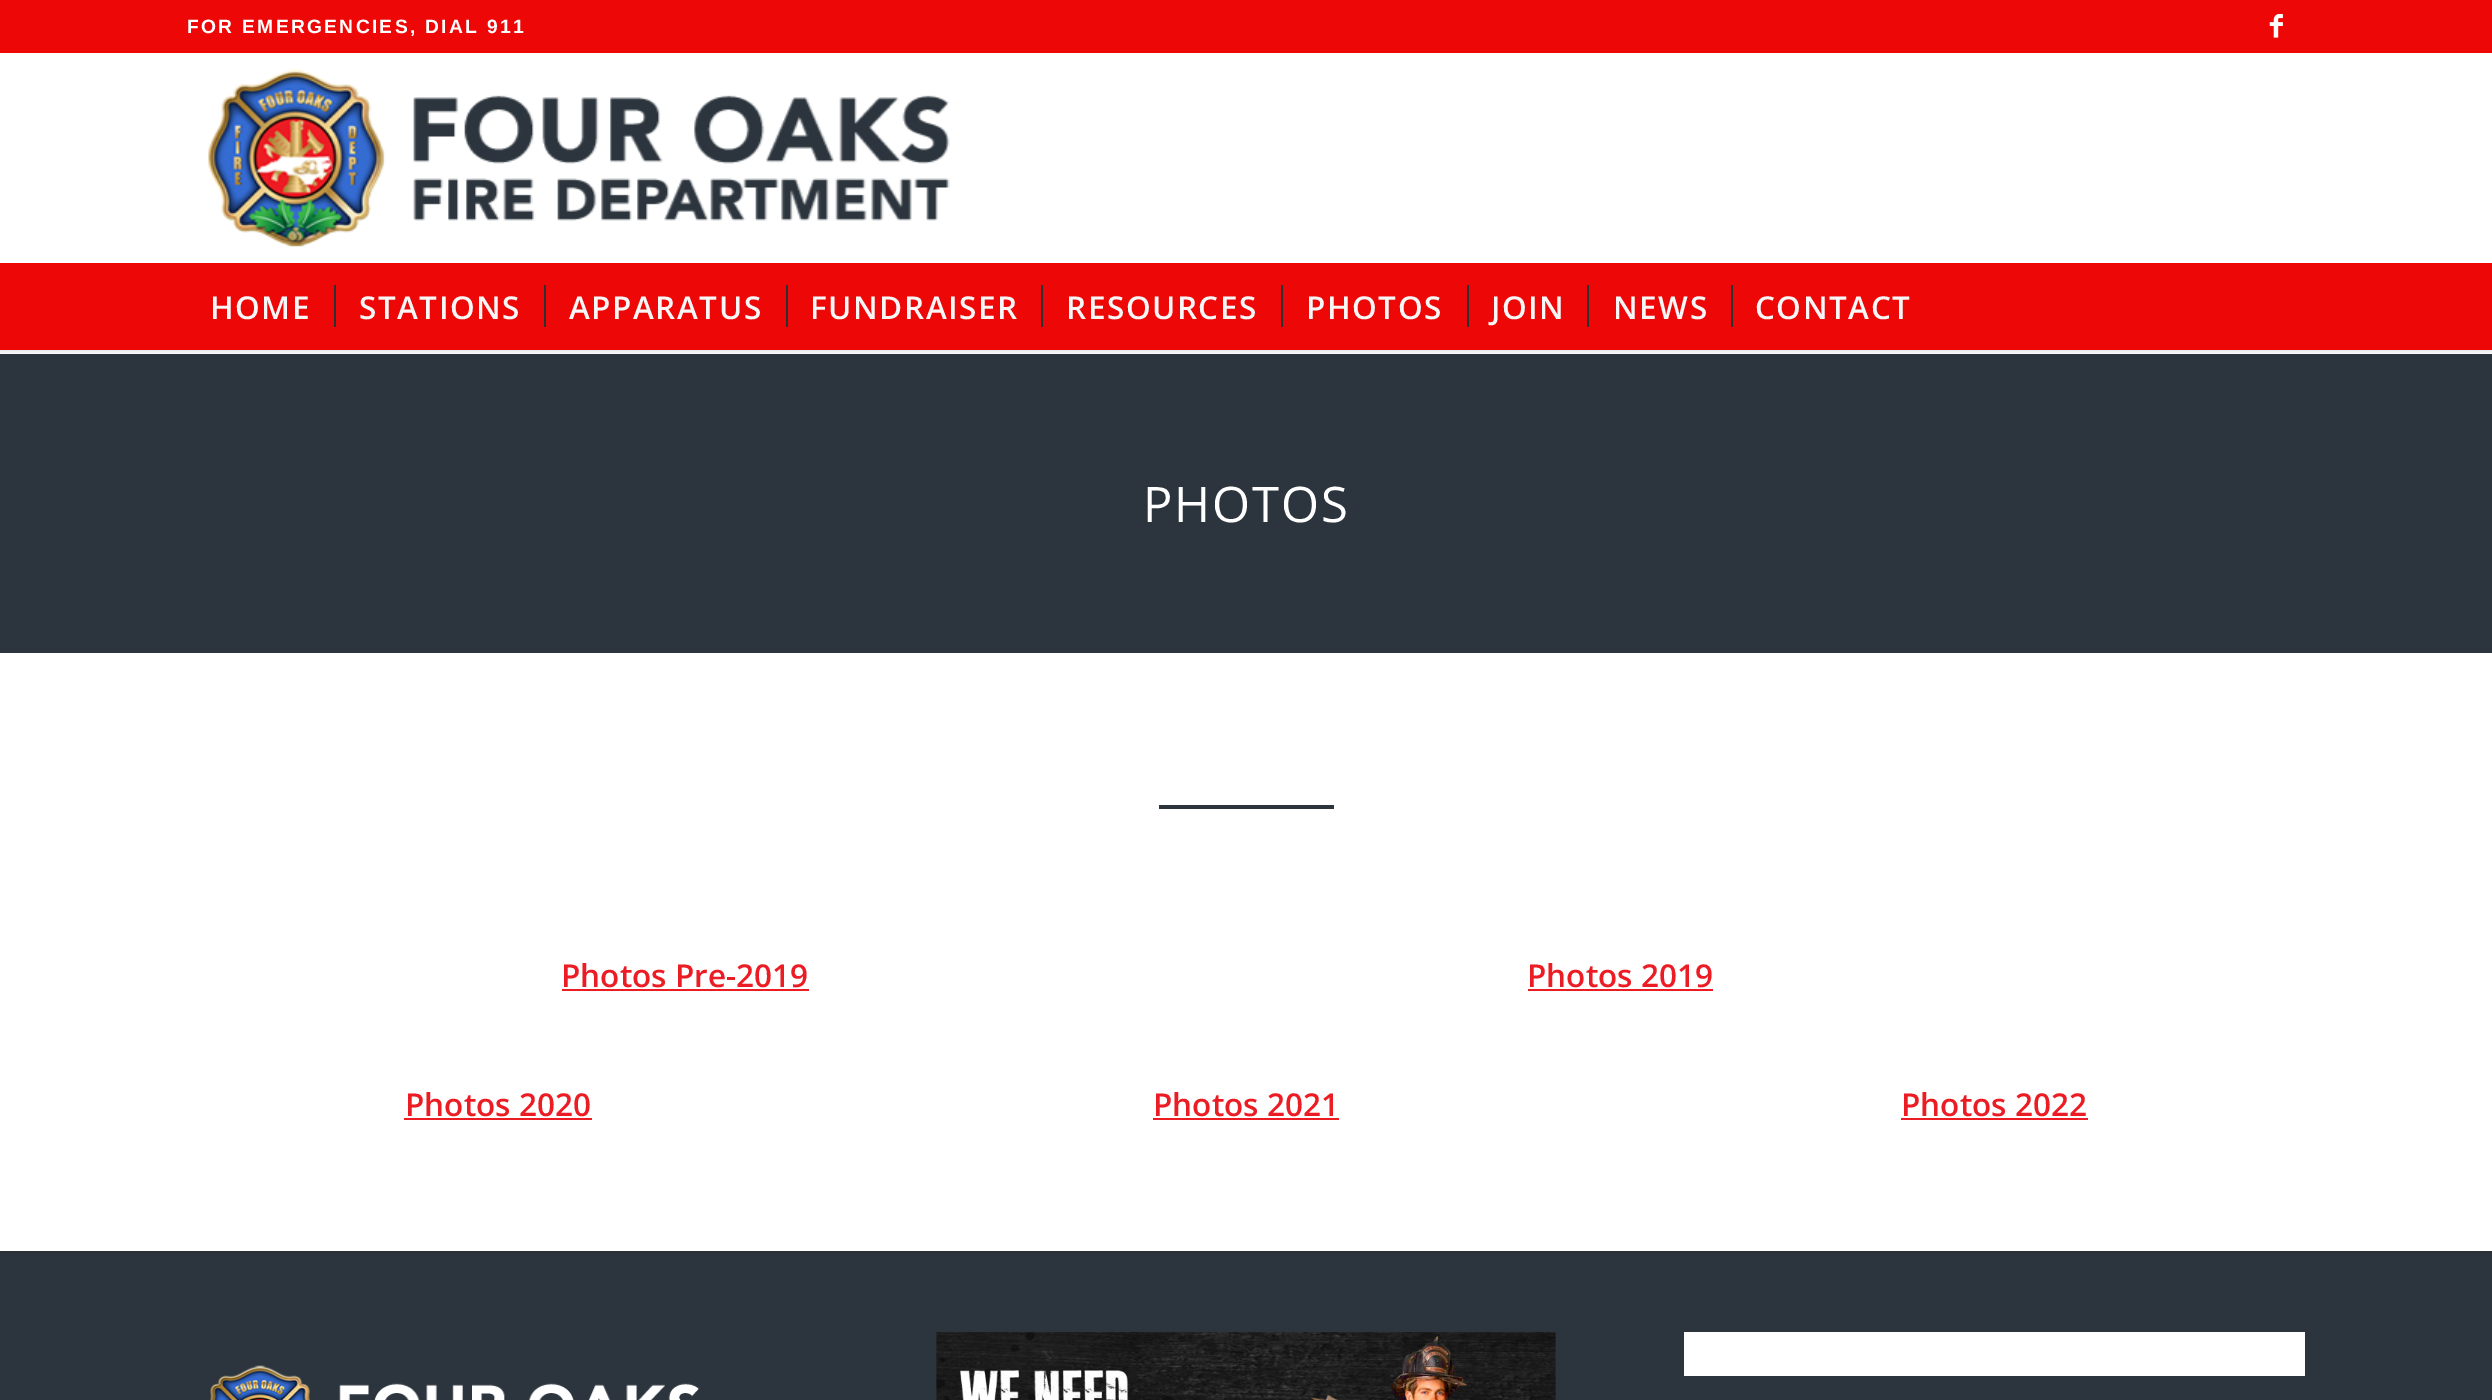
%!PS-Adobe-3.0
%%BoundingBox: 0 0 2492 1400
%%LanguageLevel: 3
%%Pages: 1
%%EndComments
%%BeginProlog
/setink { 3 { 255 div 3 1 roll } repeat setrgbcolor } def
/usefont { [ exch dup neg 0 0 3 -1 roll 0 0 ] selectfont } def
/drawtext { setink usefont moveto show } def
/fillbox { setink rectfill } def
/setalpha { dup .setfillconstantalpha .setstrokeconstantalpha } def
/rrect { 5 dict begin { /r /h /w /y /x } { exch def } forall
  x r add y moveto x w add y 2 copy h add r arct x w add y h add x 1 index r arct
  x y h add x y r arct x y 2 copy exch w add exch r arct closepath end } def
/softshadow { 12 dict begin { /a /b /q /h /w /y /x } { exch def } forall gsave /was 0 def
  9 -2 -9 { dup b mul 4 div /e exch def 1 sub .425 mul 2.718 exch exp 1 add a .99 .min exch div /now exch def
    1 1 now sub 1 was sub div sub setalpha /was now def
    w h .min e 2 mul add 0 gt { x e sub y e sub w e 2 mul add h e 2 mul add
      q e add b .6 mul add w h .min 2 div e add .min 0 .max rrect fill } if } for grestore end } def
/drawimage { 5 dict begin { /h /w /y /x /name } { exch def } forall
  gsave x y translate w h scale
  w h 8 [w 0 0 h 0 0] name (r) file false 3 colorimage grestore end } def
%%EndProlog
%%BeginSetup
<< /PageSize [2492 1400] /PageUsesTransparency true >> setpagedevice
%%EndSetup
%%Page: 1 1
0 .pushpdf14devicefilter
0 1400 translate 1 -1 scale
4 setmiterlimit
0 0 2492 1400 255 255 255 fillbox
0 354 2492 299 44 53 61 fillbox
gsave
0 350 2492 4 rectclip
0 0 0 setink
-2 -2 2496 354 0 2 0.1 softshadow
grestore
0 0 2492 53 237 7 7 fillbox
/Arimo-Bold 19.25 usefont
255 255 255 setink
187 33 moveto 2.3 0 (FOR EMERGENCIES, DIAL 911) ashow
(assets/img1.rgb) 2269 14 14 24 drawimage
(assets/img2.rgb) 208 69 742 178 drawimage
0 263 2492 87 237 7 7 fillbox
/OpenSans-SemiBold 31.5 usefont
247 247 247 setink
210 319 moveto 1.5 0 (HOME) ashow
359 319 moveto 1.5 0 (STATIONS) ashow
334 285 2 42 44 48 51 fillbox
247 247 247 setink
569 319 moveto 1.5 0 (APPARATUS) ashow
544 285 2 42 44 48 51 fillbox
247 247 247 setink
810 319 moveto 1.5 0 (FUNDRAISER) ashow
786 285 2 42 44 48 51 fillbox
247 247 247 setink
1066 319 moveto 1.5 0 (RESOURCES) ashow
1041 285 2 42 44 48 51 fillbox
247 247 247 setink
1306 319 moveto 1.5 0 (PHOTOS) ashow
1281 285 2 42 44 48 51 fillbox
247 247 247 setink
1491 319 moveto 1.5 0 (JOIN) ashow
1467 285 2 42 44 48 51 fillbox
247 247 247 setink
1613 319 moveto 1.5 0 (NEWS) ashow
1587 285 2 42 44 48 51 fillbox
247 247 247 setink
1755 319 moveto 1.5 0 (CONTACT) ashow
1731 285 2 42 44 48 51 fillbox
/OpenSans-Regular 49 usefont
255 255 255 setink
1143 522 moveto 1.75 0 (PHOTOS) ashow
1159 805 175 4 44 53 61 fillbox
(Photos Pre-2019) 561 987 /OpenSans-SemiBold 31.5 235 28 36 drawtext
562 989 247 2 235 28 36 fillbox
(Photos 2019) 1527 987 /OpenSans-SemiBold 31.5 235 28 36 drawtext
1528 989 185 2 235 28 36 fillbox
(Photos 2020) 405 1116 /OpenSans-SemiBold 31.5 235 28 36 drawtext
404 1118 188 2 235 28 36 fillbox
(Photos 2021) 1153 1116 /OpenSans-SemiBold 31.5 235 28 36 drawtext
1153 1118 186 2 235 28 36 fillbox
(Photos 2022) 1901 1116 /OpenSans-SemiBold 31.5 235 28 36 drawtext
1901 1118 187 2 235 28 36 fillbox
0 1253 2492 147 44 53 61 fillbox
0 1251 2492 2 44 48 51 fillbox
(assets/img3.rgb) 936 1332 620 68 drawimage
1684 1332 621 44 255 255 255 fillbox
(assets/img4.rgb) 210 1365 490 35 drawimage
.poppdf14devicefilter showpage
%%EOF
